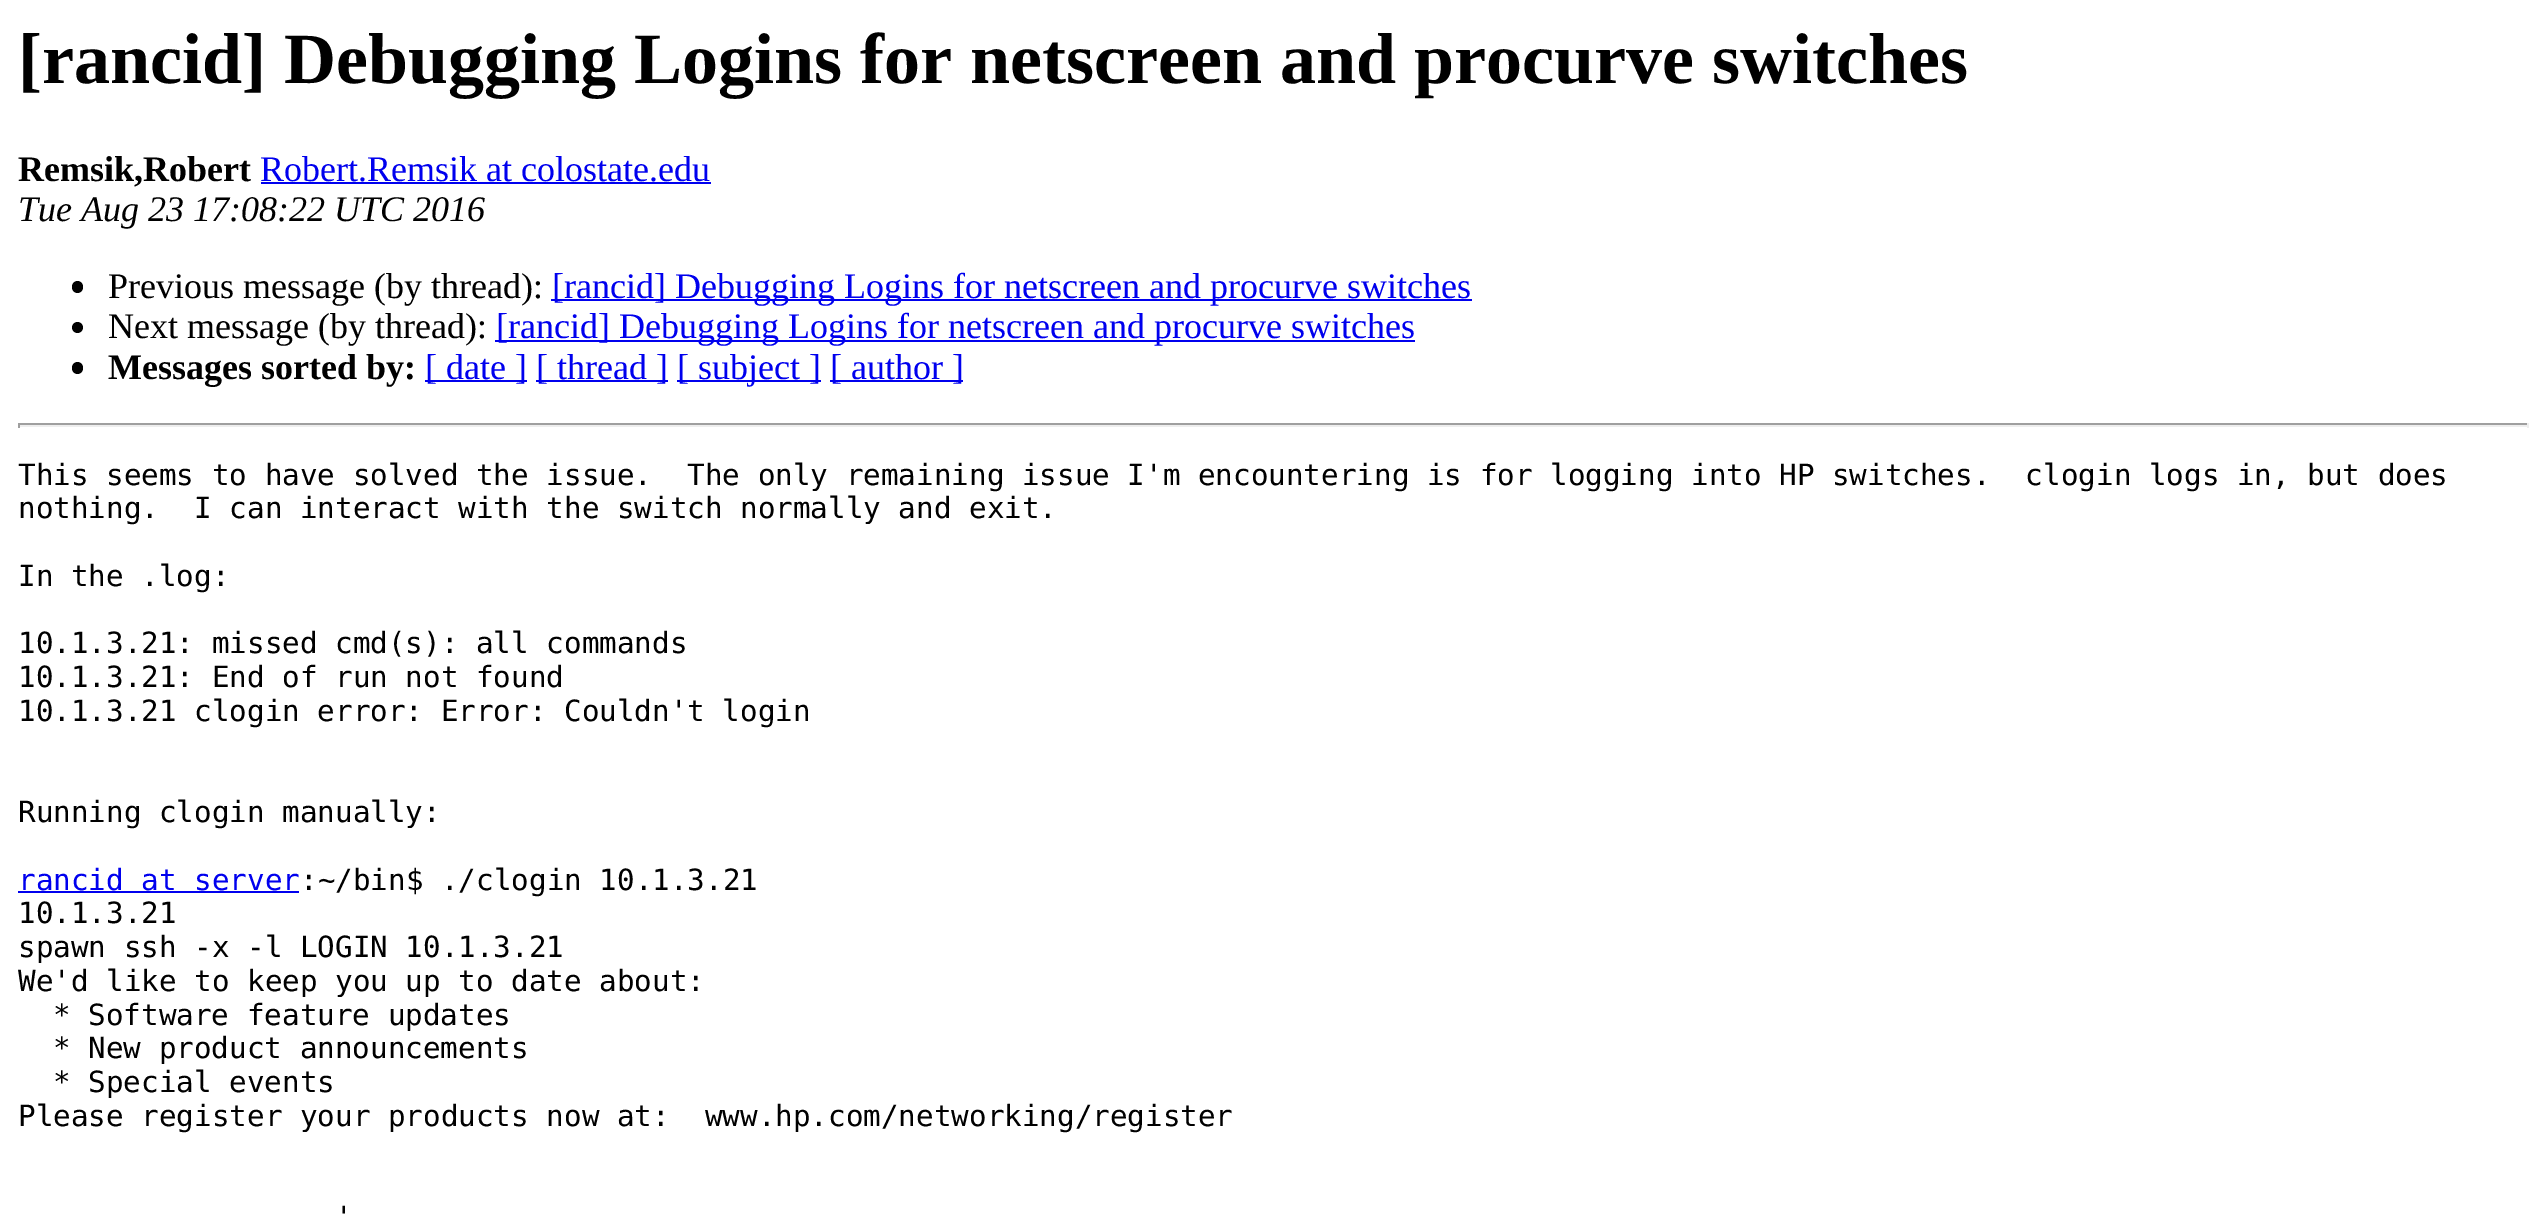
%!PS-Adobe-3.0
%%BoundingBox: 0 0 2545 1216
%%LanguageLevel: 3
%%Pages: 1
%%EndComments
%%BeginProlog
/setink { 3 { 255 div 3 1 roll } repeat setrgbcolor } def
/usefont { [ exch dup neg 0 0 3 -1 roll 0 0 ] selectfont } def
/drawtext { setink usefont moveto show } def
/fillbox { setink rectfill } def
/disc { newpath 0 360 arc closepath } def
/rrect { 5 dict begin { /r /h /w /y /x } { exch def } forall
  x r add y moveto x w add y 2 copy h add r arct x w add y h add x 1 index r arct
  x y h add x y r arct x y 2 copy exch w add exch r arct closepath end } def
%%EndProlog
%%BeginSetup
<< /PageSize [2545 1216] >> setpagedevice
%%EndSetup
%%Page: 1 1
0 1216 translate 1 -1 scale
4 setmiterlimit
0 0 2545 1216 255 255 255 fillbox
([rancid] Debugging Logins for netscreen and procurve switches) 18 83 /LiberationSerif-Bold 72 0 0 0 drawtext
(Remsik,Robert) 18 181 /LiberationSerif-Bold 36 0 0 0 drawtext
(Robert.Remsik at colostate.edu) 260 181 /LiberationSerif-Regular 36 0 0 238 drawtext
261 182 450 2 0 0 238 fillbox
(Tue Aug 23 17:08:22 UTC 2016) 18 221 /LiberationSerif-Italic 36 0 0 0 drawtext
72 281 11 12 5.5 rrect fill
(Previous message \(by thread\):) 108 298 /LiberationSerif-Regular 36 0 0 0 drawtext
551 299 921 2 0 0 238 fillbox
([rancid] Debugging Logins for netscreen and procurve switches) 552 298 /LiberationSerif-Regular 36 0 0 238 drawtext
0 0 0 setink
77.5 327.5 5.5 disc fill
(Next message \(by thread\):) 108 338 /LiberationSerif-Regular 36 0 0 0 drawtext
495 340 920 2 0 0 238 fillbox
([rancid] Debugging Logins for netscreen and procurve switches) 496 338 /LiberationSerif-Regular 36 0 0 238 drawtext
0 0 0 setink
72 362 11 12 5.5 rrect fill
(Messages sorted by:) 108 379 /LiberationSerif-Bold 36 0 0 0 drawtext
425 380 102 2 0 0 238 fillbox
([ date ]) 425 379 /LiberationSerif-Regular 36 0 0 238 drawtext
536 380 132 2 0 0 238 fillbox
([ thread ]) 536 379 /LiberationSerif-Regular 36 0 0 238 drawtext
677 380 144 2 0 0 238 fillbox
([ subject ]) 677 379 /LiberationSerif-Regular 36 0 0 238 drawtext
830 380 133 2 0 0 238 fillbox
([ author ]) 830 379 /LiberationSerif-Regular 36 0 0 238 drawtext
18 423 2511 2 159 159 159 fillbox
2527 423 2 5 238 238 238 fillbox
18 425 2511 2 238 238 238 fillbox
18 423 2 5 159 159 159 fillbox
(This seems to have solved the issue.  The only remaining issue I'm encountering is for logging into HP switches.  clogin logs in, but does) 18 485 /DejaVuSansMono-Regular 29.25 0 0 0 drawtext
(nothing.  I can interact with the switch normally and exit.) 18 518 /DejaVuSansMono-Regular 29.25 0 0 0 drawtext
(In the .log:) 18 586 /DejaVuSansMono-Regular 29.25 0 0 0 drawtext
(10.1.3.21: missed cmd\(s\): all commands) 18 653 /DejaVuSansMono-Regular 29.25 0 0 0 drawtext
(10.1.3.21: End of run not found) 18 687 /DejaVuSansMono-Regular 29.25 0 0 0 drawtext
(10.1.3.21 clogin error: Error: Couldn't login) 18 721 /DejaVuSansMono-Regular 29.25 0 0 0 drawtext
(Running clogin manually:) 18 822 /DejaVuSansMono-Regular 29.25 0 0 0 drawtext
(rancid at server) 18 890 /DejaVuSansMono-Regular 29.25 0 0 238 drawtext
18 891 281 2 0 0 238 fillbox
(:~/bin$ ./clogin 10.1.3.21) 300 890 /DejaVuSansMono-Regular 29.25 0 0 0 drawtext
(10.1.3.21) 18 923 /DejaVuSansMono-Regular 29.25 0 0 0 drawtext
(spawn ssh -x -l LOGIN 10.1.3.21) 18 957 /DejaVuSansMono-Regular 29.25 0 0 0 drawtext
(We'd like to keep you up to date about:) 18 991 /DejaVuSansMono-Regular 29.25 0 0 0 drawtext
(* Software feature updates) 53 1025 /DejaVuSansMono-Regular 29.25 0 0 0 drawtext
(* New product announcements) 53 1058 /DejaVuSansMono-Regular 29.25 0 0 0 drawtext
(* Special events) 53 1092 /DejaVuSansMono-Regular 29.25 0 0 0 drawtext
(Please register your products now at:  www.hp.com/networking/register) 18 1126 /DejaVuSansMono-Regular 29.25 0 0 0 drawtext
(') 335 1227 /DejaVuSansMono-Regular 29.25 0 0 0 drawtext
showpage
%%EOF
